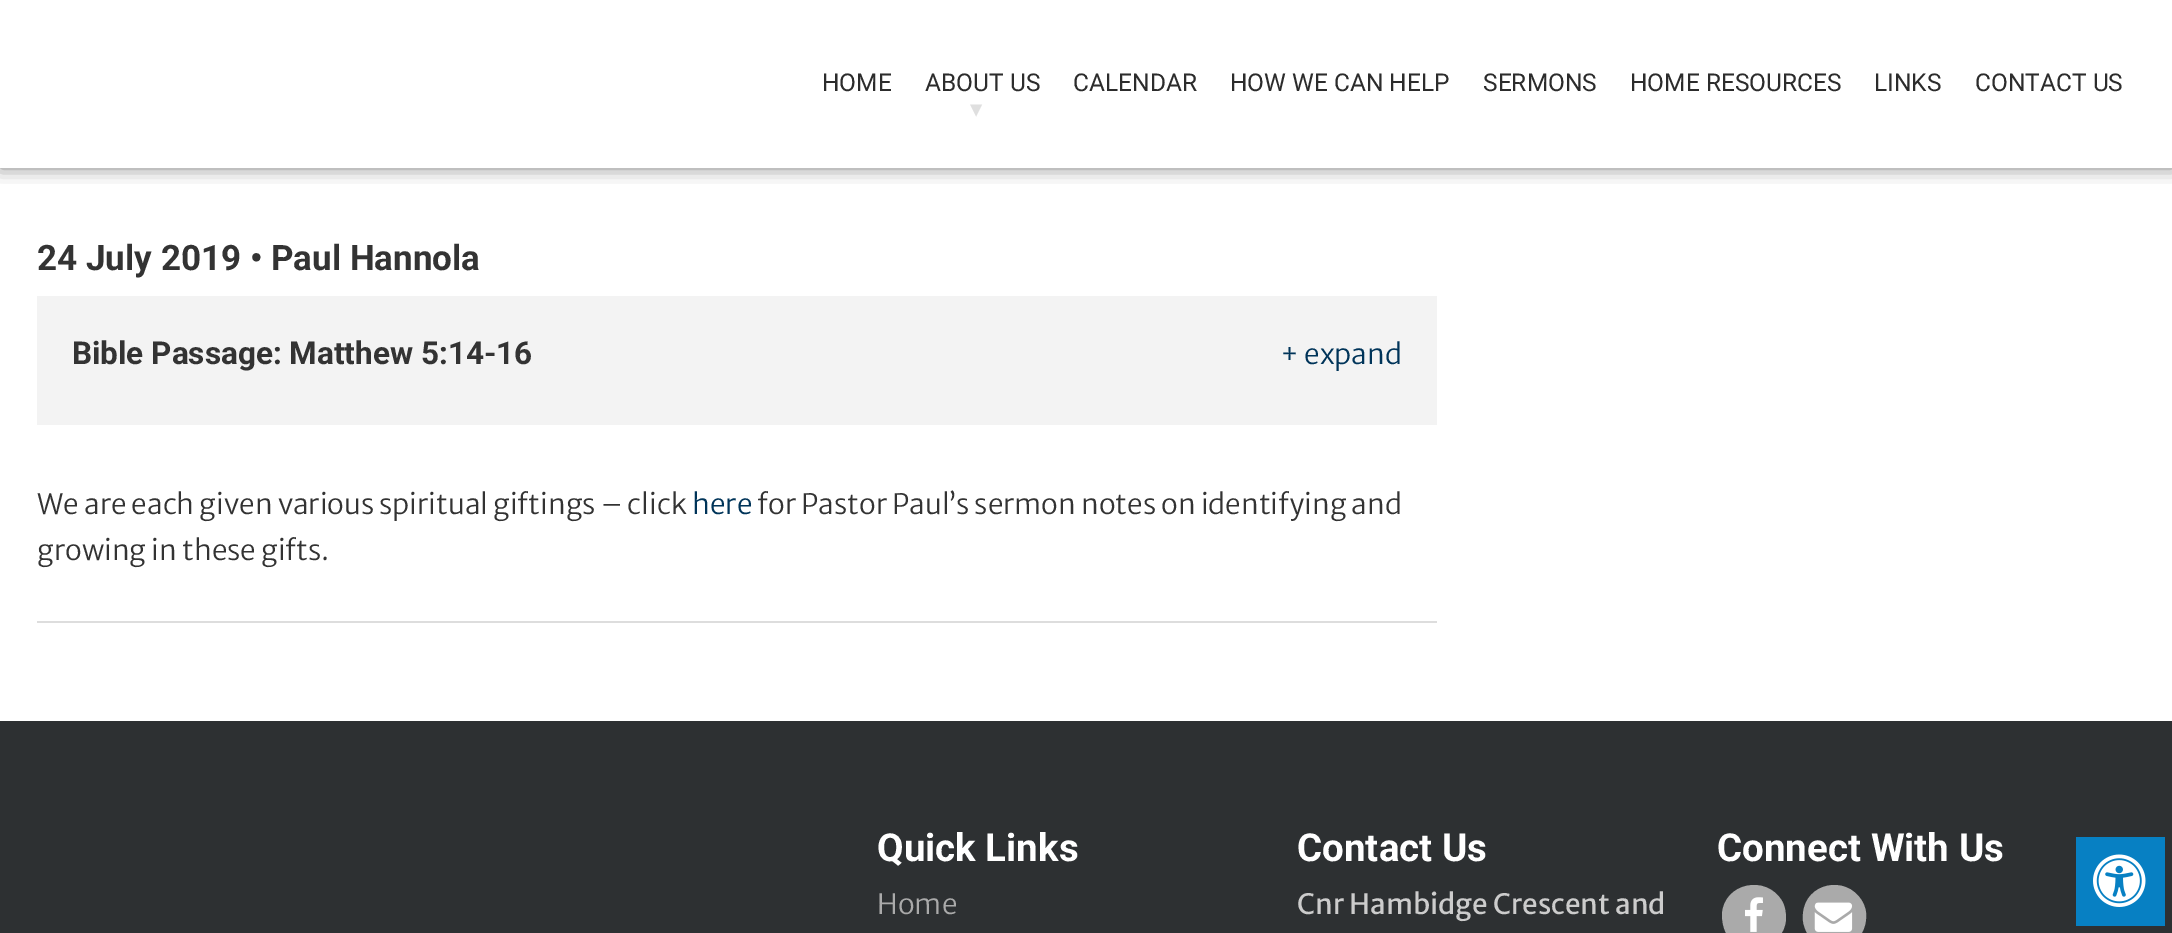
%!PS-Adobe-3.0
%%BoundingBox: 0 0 2172 933
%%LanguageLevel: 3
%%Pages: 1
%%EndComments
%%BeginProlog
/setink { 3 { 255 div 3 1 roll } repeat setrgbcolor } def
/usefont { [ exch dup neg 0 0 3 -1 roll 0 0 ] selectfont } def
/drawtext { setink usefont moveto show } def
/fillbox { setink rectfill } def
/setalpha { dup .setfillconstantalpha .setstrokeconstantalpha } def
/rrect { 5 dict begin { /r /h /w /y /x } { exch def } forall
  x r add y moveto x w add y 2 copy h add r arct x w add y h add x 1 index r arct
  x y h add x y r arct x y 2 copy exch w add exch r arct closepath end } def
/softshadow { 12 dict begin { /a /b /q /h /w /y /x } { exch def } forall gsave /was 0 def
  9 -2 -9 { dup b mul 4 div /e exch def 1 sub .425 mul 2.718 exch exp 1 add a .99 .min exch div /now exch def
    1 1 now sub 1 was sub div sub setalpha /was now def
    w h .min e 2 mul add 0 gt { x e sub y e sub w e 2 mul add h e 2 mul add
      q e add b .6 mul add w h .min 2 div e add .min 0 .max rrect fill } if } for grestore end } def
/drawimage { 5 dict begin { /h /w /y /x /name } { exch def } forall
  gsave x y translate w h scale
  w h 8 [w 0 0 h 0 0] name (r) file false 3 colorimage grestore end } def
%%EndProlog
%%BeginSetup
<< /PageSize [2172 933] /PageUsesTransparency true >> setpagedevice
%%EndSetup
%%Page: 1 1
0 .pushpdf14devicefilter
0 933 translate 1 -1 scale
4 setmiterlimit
0 0 2172 933 255 255 255 fillbox
gsave
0 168 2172 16 rectclip
0 0 0 setink
0 0 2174 168 0 9 0.5 softshadow
grestore
(HOME) 822 91 /Roboto-Regular 24.5 44 44 44 drawtext
(ABOUT US) 925 91 /Roboto-Regular 24.5 44 44 44 drawtext
(▾) 970 117 /DejaVuSans-Regular 24.5 223 223 223 drawtext
(CALENDAR) 1073 91 /Roboto-Regular 24.5 44 44 44 drawtext
(HOW WE CAN HELP) 1230 91 /Roboto-Regular 24.5 44 44 44 drawtext
(SERMONS) 1483 91 /Roboto-Regular 24.5 44 44 44 drawtext
(HOME RESOURCES) 1630 91 /Roboto-Regular 24.5 44 44 44 drawtext
(LINKS) 1874 91 /Roboto-Regular 24.5 44 44 44 drawtext
(CONTACT US) 1975 91 /Roboto-Regular 24.5 44 44 44 drawtext
(24 July 2019 • Paul Hannola) 37 270 /Roboto-Bold 35 51 51 51 drawtext
37 296 1400 129 243 243 243 fillbox
(Bible Passage: Matthew 5:14-16) 72 364 /Roboto-Bold 31.5 51 51 51 drawtext
(+ expand) 1280 364 /MerriweatherSans-Light 28 0 52 89 drawtext
(We are each given various spiritual giftings – click) 37 514 /MerriweatherSans-Light 28 51 51 51 drawtext
(here) 692 514 /MerriweatherSans-Light 28 0 52 89 drawtext
(for Pastor Paul’s sermon notes on identifying and) 757 514 /MerriweatherSans-Light 28 51 51 51 drawtext
(growing in these gifts.) 37 560 /MerriweatherSans-Light 28 51 51 51 drawtext
37 621 1400 2 221 221 221 fillbox
0 721 2172 212 45 48 50 fillbox
(Quick Links) 877 861 /Roboto-Bold 38.5 255 255 255 drawtext
(Home) 877 914 /MerriweatherSans-Light 28 170 170 170 drawtext
(Contact Us) 1297 861 /Roboto-Bold 38.5 255 255 255 drawtext
(Cnr Hambidge Crescent and) 1297 914 /MerriweatherSans-Regular 28 204 204 204 drawtext
(Connect With Us) 1717 861 /Roboto-Bold 38.5 255 255 255 drawtext
170 170 170 setink
1782 901 moveto 1785 906 1786 912 1786 919 curveto 1784 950 1742 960 1726 933 curveto 1723 927 1722 921 1722 914 curveto 1724 883 1766 874 1782 901 curveto closepath fill
(assets/img1.rgb) 1745 897 18 35 drawimage
1862 901 moveto 1865 906 1867 912 1866 919 curveto 1864 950 1823 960 1807 933 curveto 1804 927 1802 921 1803 914 curveto 1805 883 1846 874 1862 901 curveto closepath fill
(assets/img2.rgb) 1814 902 39 30 drawimage
2076 837 89 89 7 128 195 fillbox
(assets/img3.rgb) 2093 854 53 53 drawimage
.poppdf14devicefilter showpage
%%EOF
